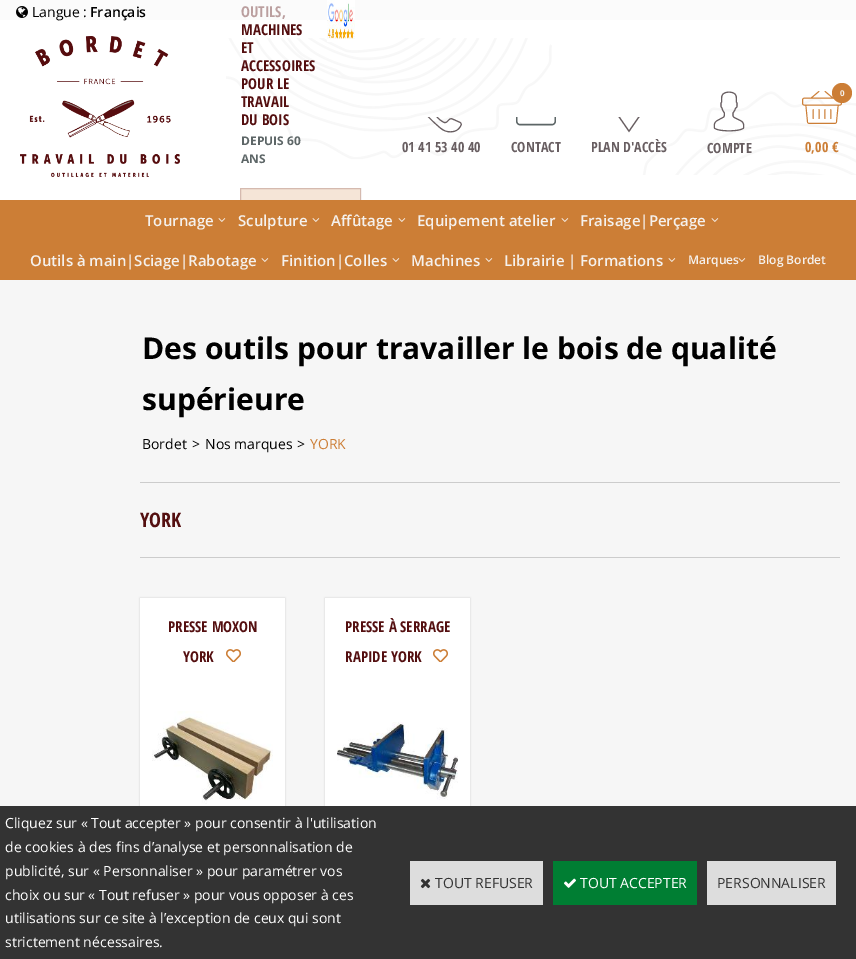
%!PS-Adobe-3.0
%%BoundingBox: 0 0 856 959
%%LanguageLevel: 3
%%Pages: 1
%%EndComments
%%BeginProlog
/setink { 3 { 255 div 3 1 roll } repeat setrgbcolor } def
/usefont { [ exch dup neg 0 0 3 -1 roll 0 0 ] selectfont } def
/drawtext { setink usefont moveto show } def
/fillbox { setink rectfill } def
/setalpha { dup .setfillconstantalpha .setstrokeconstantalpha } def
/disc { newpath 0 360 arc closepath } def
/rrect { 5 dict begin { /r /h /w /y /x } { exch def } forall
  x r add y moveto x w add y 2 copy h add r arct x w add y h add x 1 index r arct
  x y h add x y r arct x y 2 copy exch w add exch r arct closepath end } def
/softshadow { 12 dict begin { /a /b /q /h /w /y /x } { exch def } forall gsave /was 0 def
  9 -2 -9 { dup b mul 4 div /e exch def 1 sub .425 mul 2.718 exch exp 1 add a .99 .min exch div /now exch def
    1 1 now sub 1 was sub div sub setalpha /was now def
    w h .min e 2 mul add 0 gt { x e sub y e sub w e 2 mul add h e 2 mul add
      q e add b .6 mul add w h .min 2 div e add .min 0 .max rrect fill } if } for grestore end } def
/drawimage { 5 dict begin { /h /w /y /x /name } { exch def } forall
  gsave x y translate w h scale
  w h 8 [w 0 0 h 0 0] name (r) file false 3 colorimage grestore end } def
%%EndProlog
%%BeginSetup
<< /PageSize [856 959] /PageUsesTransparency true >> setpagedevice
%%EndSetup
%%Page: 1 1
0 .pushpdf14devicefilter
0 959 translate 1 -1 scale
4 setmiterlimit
0 0 856 959 246 246 246 fillbox
0 20 856 180 255 255 255 fillbox
240 188 121 12 245 229 215 fillbox
(assets/img1.rgb) 20 36 160 141 drawimage
(OUTILS,) 241 17 /OpenSansCondensed-Bold 15 84 15 16 drawtext
(MACHINES) 241 35 /OpenSansCondensed-Bold 15 84 15 16 drawtext
(assets/img3.rgb) 226 38 630 137 drawimage
(ET) 241 53 /OpenSansCondensed-Bold 15 84 15 16 drawtext
(ACCESSOIRES) 241 71 /OpenSansCondensed-Bold 15 84 15 16 drawtext
(POUR LE) 241 89 /OpenSansCondensed-Bold 15 84 15 16 drawtext
(TRAVAIL) 241 107 /OpenSansCondensed-Bold 15 84 15 16 drawtext
(DU BOIS) 241 125 /OpenSansCondensed-Bold 15 84 15 16 drawtext
(DEPUIS 60) 241 145 /OpenSans-Bold 12 93 102 103 drawtext
(ANS) 241 163 /OpenSans-Bold 12 93 102 103 drawtext
(assets/img2.rgb) 327 0 28 42 drawimage
0.2 setalpha
84 15 16 setink
240.5 188.5 120 49 rectstroke
1 setalpha
(assets/img4.rgb) 427 117 35 16 drawimage
(01 41 53 40 40) 402 152 /OpenSansCondensed-Bold 14 104 94 97 drawtext
(assets/img5.rgb) 516 117 40 9 drawimage
(CONTACT) 511 152 /OpenSansCondensed-Bold 14 104 94 97 drawtext
(assets/img6.rgb) 618 117 22 16 drawimage
(PLAN D'ACCÈS) 591 152 /OpenSansCondensed-Bold 14 104 94 97 drawtext
(assets/img7.rgb) 713 91 32 41 drawimage
(COMPTE) 707 153 /OpenSansCondensed-Bold 14 104 94 97 drawtext
(assets/img8.rgb) 802 91 40 33 drawimage
204 126 54 setink
842 93 10 disc fill
(0) 840 96 /OpenSans-Bold 8 245 241 237 drawtext
(0,00 €) 805 152 /OpenSansCondensed-Bold 14 204 126 54 drawtext
0 200 856 80 204 126 54 fillbox
(Tournage) 145 226 /OpenSans-SemiBold 15 245 241 237 drawtext
(assets/img9.rgb) 218 218 8 4 drawimage
(Sculpture) 238 226 /OpenSans-SemiBold 15 245 241 237 drawtext
(assets/img9.rgb) 312 218 8 4 drawimage
(Affûtage) 331 226 /OpenSans-SemiBold 15 245 241 237 drawtext
(assets/img9.rgb) 398 218 8 4 drawimage
(Equipement atelier) 417 226 /OpenSans-SemiBold 15 245 241 237 drawtext
(assets/img9.rgb) 561 218 8 4 drawimage
(Fraisage|Perçage) 580 226 /OpenSans-SemiBold 15 245 241 237 drawtext
(assets/img9.rgb) 711 218 8 4 drawimage
(Outils à main|Sciage|Rabotage) 30 266 /OpenSans-SemiBold 15 245 241 237 drawtext
(assets/img9.rgb) 261 258 8 4 drawimage
(Finition|Colles) 281 266 /OpenSans-SemiBold 15 245 241 237 drawtext
(assets/img9.rgb) 392 258 8 4 drawimage
(Machines) 411 266 /OpenSans-SemiBold 15 245 241 237 drawtext
(assets/img9.rgb) 485 258 8 4 drawimage
(Librairie | Formations) 504 266 /OpenSans-SemiBold 15 245 241 237 drawtext
(assets/img9.rgb) 668 258 8 4 drawimage
(Marques) 688 264 /OpenSans-SemiBold 12 245 241 237 drawtext
(assets/img10.rgb) 738 258 8 4 drawimage
(Blog Bordet) 758 264 /OpenSans-SemiBold 12 245 241 237 drawtext
140 482 700 1 204 204 204 fillbox
(Des outils pour travailler le bois de qualité) 142 359 /OpenSans-Bold 30 0 0 0 drawtext
(supérieure) 142 410 /OpenSans-Bold 30 0 0 0 drawtext
(Bordet) 142 449 /OpenSans-Regular 14 0 0 0 drawtext
(>) 192 449 /OpenSans-Regular 14 0 0 0 drawtext
(Nos marques) 205 449 /OpenSans-Regular 14 0 0 0 drawtext
(>) 297 449 /OpenSans-Regular 14 0 0 0 drawtext
(YORK) 310 449 /OpenSans-Regular 14 204 126 54 drawtext
140 557 700 1 204 204 204 fillbox
(YORK) 140 527 /OpenSansCondensed-Bold 20 84 15 16 drawtext
204 204 204 setink
140 598 145 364 0 1 1 softshadow
140 598 145 208 255 255 255 fillbox
(PRESSE MOXON) 168 632 /OpenSansCondensed-Bold 15 84 15 16 drawtext
(YORK) 183 662 /OpenSansCondensed-Bold 15 84 15 16 drawtext
(assets/img11.rgb) 226 649 15 13 drawimage
(assets/img12.rgb) 152 711 121 93 drawimage
204 204 204 setink
325 598 145 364 0 1 1 softshadow
325 598 145 208 255 255 255 fillbox
(PRESSE À SERRAGE) 345 632 /OpenSansCondensed-Bold 15 84 15 16 drawtext
(RAPIDE YORK) 345 662 /OpenSansCondensed-Bold 15 84 15 16 drawtext
(assets/img11.rgb) 433 649 15 13 drawimage
(assets/img13.rgb) 337 722 121 78 drawimage
0 806 856 153 51 51 51 fillbox
(Cliquez sur « Tout accepter » pour consentir à l'utilisation) 5 828 /OpenSans-Regular 14 255 255 255 drawtext
(de cookies à des fins d’analyse et personnalisation de) 5 852 /OpenSans-Regular 14 255 255 255 drawtext
(publicité, sur « Personnaliser » pour paramétrer vos) 5 876 /OpenSans-Regular 14 255 255 255 drawtext
(choix ou sur « Tout refuser » pour vous opposer à ces) 5 900 /OpenSans-Regular 14 255 255 255 drawtext
(utilisations sur ce site à l’exception de ceux qui sont) 5 923 /OpenSans-Regular 14 255 255 255 drawtext
(strictement nécessaires.) 5 947 /OpenSans-Regular 14 255 255 255 drawtext
410 861 133 44 221 221 221 fillbox
(assets/img14.rgb) 420 878 11 11 drawimage
(TOUT REFUSER) 435 888 /OpenSans-Regular 14 51 51 51 drawtext
553 861 144 44 0 126 51 fillbox
(assets/img15.rgb) 564 878 12 10 drawimage
(TOUT ACCEPTER) 580 888 /OpenSans-Regular 14 255 255 255 drawtext
707 861 129 44 221 221 221 fillbox
(PERSONNALISER) 717 888 /OpenSans-Regular 14 51 51 51 drawtext
0.6 setalpha
0 0 856 20 255 255 255 fillbox
1 setalpha
(assets/img16.rgb) 16 6 12 12 drawimage
(Langue :) 32 17 /OpenSans-Regular 14 0 0 0 drawtext
(Français) 90 17 /OpenSans-SemiBold 14 0 0 0 drawtext
.poppdf14devicefilter showpage
%%EOF
